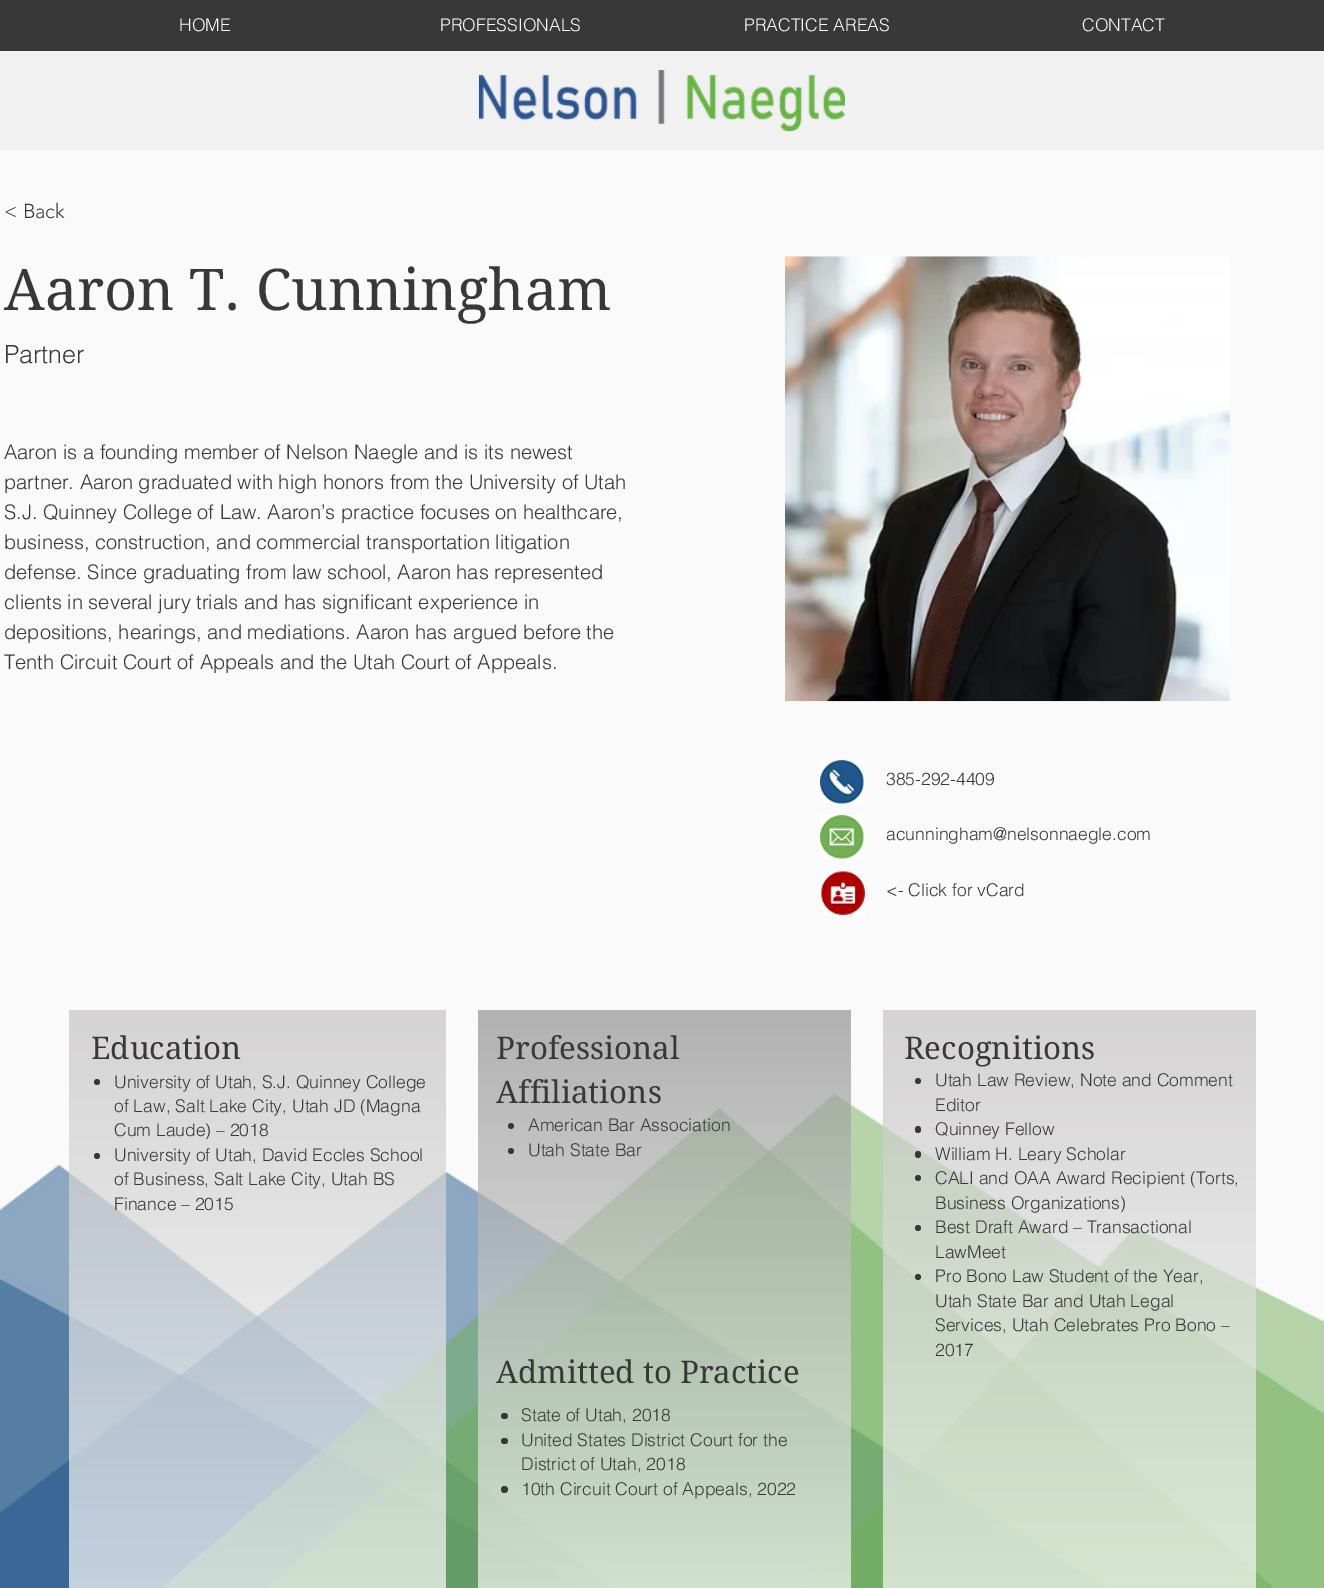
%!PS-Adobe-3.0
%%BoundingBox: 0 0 1324 1588
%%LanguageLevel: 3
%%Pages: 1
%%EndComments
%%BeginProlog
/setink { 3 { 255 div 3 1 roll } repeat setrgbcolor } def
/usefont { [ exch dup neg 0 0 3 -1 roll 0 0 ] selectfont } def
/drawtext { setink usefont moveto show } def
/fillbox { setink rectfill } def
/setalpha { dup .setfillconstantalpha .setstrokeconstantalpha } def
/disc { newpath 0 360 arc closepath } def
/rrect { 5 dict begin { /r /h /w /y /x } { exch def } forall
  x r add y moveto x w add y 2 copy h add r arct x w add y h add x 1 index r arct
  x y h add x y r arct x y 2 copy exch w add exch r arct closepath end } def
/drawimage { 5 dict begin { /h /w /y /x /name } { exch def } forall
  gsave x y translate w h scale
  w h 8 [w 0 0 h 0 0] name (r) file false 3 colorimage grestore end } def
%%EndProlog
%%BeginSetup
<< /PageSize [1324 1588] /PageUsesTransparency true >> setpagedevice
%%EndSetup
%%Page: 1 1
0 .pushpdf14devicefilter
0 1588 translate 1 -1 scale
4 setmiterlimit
0 0 1324 1588 250 250 250 fillbox
0 0 1324 51 56 56 56 fillbox
(HOME) 179 31 /helvetica-Light 17.5 250 250 250 drawtext
(PROFESSIONALS) 440 31 /helvetica-Light 17.5 250 250 250 drawtext
(PRACTICE AREAS) 744 31 /helvetica-Light 17.5 250 250 250 drawtext
(CONTACT) 1082 31 /helvetica-Light 17.5 250 250 250 drawtext
0 51 1324 99 241 241 241 fillbox
(assets/img1.rgb) 478 70 367 62 drawimage
(< Back) 4 218 /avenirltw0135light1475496-Light 20 56 56 56 drawtext
(Aaron T. Cunningham) 4 310 /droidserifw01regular-Regular 57.5 56 56 56 drawtext
(Partner) 4 363 /helvetica-Light 25 56 56 56 drawtext
(Aaron is a founding member of Nelson Naegle and is its newest) 4 459 /helvetica-Light 20 56 56 56 drawtext
(partner. Aaron graduated with high honors from the University of Utah) 4 489 /helvetica-Light 20 56 56 56 drawtext
(S.J. Quinney College of Law. Aaron’s practice focuses on healthcare,) 4 519 /helvetica-Light 20 56 56 56 drawtext
(business, construction, and commercial transportation litigation) 4 549 /helvetica-Light 20 56 56 56 drawtext
(defense. Since graduating from law school, Aaron has represented) 4 579 /helvetica-Light 20 56 56 56 drawtext
(clients in several jury trials and has significant experience in) 4 609 /helvetica-Light 20 56 56 56 drawtext
(depositions, hearings, and mediations. Aaron has argued before the) 4 639 /helvetica-Light 20 56 56 56 drawtext
(Tenth Circuit Court of Appeals and the Utah Court of Appeals.) 4 669 /helvetica-Light 20 56 56 56 drawtext
(assets/img2.rgb) 785 256 445 446 drawimage
(assets/img3.rgb) 820 760 44 44 drawimage
(385-292-4409) 886 785 /helvetica-Light 17.5 56 56 56 drawtext
(assets/img4.rgb) 820 815 44 44 drawimage
(acunningham@nelsonnaegle.com) 886 840 /helvetica-Light 17.5 56 56 56 drawtext
(assets/img5.rgb) 821 871 44 44 drawimage
(<- Click for vCard) 886 896 /helvetica-Light 17.5 56 56 56 drawtext
(assets/img6.rgb) 0 1093 1324 495 drawimage
0.7 setalpha
gsave 69 1010 moveto 446 1010 lineto 446 1588 lineto 69 1588 lineto closepath clip newpath
<< /ShadingType 2 /ColorSpace /DeviceRGB /Coords [257 1010 258 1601] /Extend [true true] /Function << /FunctionType 2 /Domain [0 1] /C0 [0.773 0.765 0.765] /C1 [1 1 1] /N 1 >> >> shfill grestore
1 setalpha
(Education) 91 1059 /droidserifw01regular-Regular 31.25 56 56 56 drawtext
97 1082 3 disc fill
(University of Utah, S.J. Quinney College) 114 1088 /helvetica-Light 17.5 56 56 56 drawtext
(of Law, Salt Lake City, Utah JD \(Magna) 114 1112 /helvetica-Light 17.5 56 56 56 drawtext
(Cum Laude\) – 2018) 114 1136 /helvetica-Light 17.5 56 56 56 drawtext
97 1156 3 disc fill
(University of Utah, David Eccles School) 114 1161 /helvetica-Light 17.5 56 56 56 drawtext
(of Business, Salt Lake City, Utah BS) 114 1185 /helvetica-Light 17.5 56 56 56 drawtext
(Finance – 2015) 114 1210 /helvetica-Light 17.5 56 56 56 drawtext
0.7 setalpha
gsave 478 1010 moveto 851 1010 lineto 851 1588 lineto 478 1588 lineto closepath clip newpath
<< /ShadingType 2 /ColorSpace /DeviceRGB /Coords [664 1010 664 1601] /Extend [true true] /Function << /FunctionType 2 /Domain [0 1] /C0 [0.573 0.573 0.573] /C1 [0.98 0.98 0.98] /N 1 >> >> shfill grestore
1 setalpha
(Professional) 496 1059 /droidserifw01regular-Regular 31.25 56 56 56 drawtext
(Affiliations) 496 1103 /droidserifw01regular-Regular 31.25 56 56 56 drawtext
511 1126 3 disc fill
(American Bar Association) 528 1131 /helvetica-Light 17.5 56 56 56 drawtext
511 1151 3 disc fill
(Utah State Bar) 528 1156 /helvetica-Light 17.5 56 56 56 drawtext
501 1413 7 6 3 rrect fill
(State of Utah, 2018) 521 1421 /helvetica-Light 17.5 56 56 56 drawtext
501 1438 7 6 3 rrect fill
(United States District Court for the) 521 1446 /helvetica-Light 17.5 56 56 56 drawtext
(District of Utah, 2018) 521 1470 /helvetica-Light 17.5 56 56 56 drawtext
504.5 1489.5 3.5 disc fill
(10th Circuit Court of Appeals, 2022) 521 1495 /helvetica-Light 17.5 56 56 56 drawtext
0.7 setalpha
gsave 883 1010 moveto 1256 1010 lineto 1256 1588 lineto 883 1588 lineto closepath clip newpath
<< /ShadingType 2 /ColorSpace /DeviceRGB /Coords [1069 1010 1069 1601] /Extend [true true] /Function << /FunctionType 2 /Domain [0 1] /C0 [0.773 0.765 0.765] /C1 [0.98 0.98 0.98] /N 1 >> >> shfill grestore
1 setalpha
(Recognitions) 904 1059 /droidserifw01regular-Regular 31.25 56 56 56 drawtext
918 1081 3 disc fill
(Utah Law Review, Note and Comment) 935 1086 /helvetica-Light 17.5 56 56 56 drawtext
(Editor) 935 1111 /helvetica-Light 17.5 56 56 56 drawtext
915 1126 6 7 3 rrect fill
(Quinney Fellow) 935 1135 /helvetica-Light 17.5 56 56 56 drawtext
915 1151 6 7 3 rrect fill
(William H. Leary Scholar) 935 1160 /helvetica-Light 17.5 56 56 56 drawtext
918 1178 3 disc fill
(CALI and OAA Award Recipient \(Torts,) 935 1184 /helvetica-Light 17.5 56 56 56 drawtext
(Business Organizations\)) 935 1209 /helvetica-Light 17.5 56 56 56 drawtext
918 1228 3 disc fill
(Best Draft Award – Transactional) 935 1233 /helvetica-Light 17.5 56 56 56 drawtext
(LawMeet) 935 1258 /helvetica-Light 17.5 56 56 56 drawtext
918 1277 3 disc fill
(Pro Bono Law Student of the Year,) 935 1282 /helvetica-Light 17.5 56 56 56 drawtext
(Utah State Bar and Utah Legal) 935 1307 /helvetica-Light 17.5 56 56 56 drawtext
(Services, Utah Celebrates Pro Bono –) 935 1331 /helvetica-Light 17.5 56 56 56 drawtext
(2017) 935 1356 /helvetica-Light 17.5 56 56 56 drawtext
(Admitted to Practice) 496 1383 /droidserifw01regular-Regular 31.25 56 56 56 drawtext
.poppdf14devicefilter showpage
%%EOF
